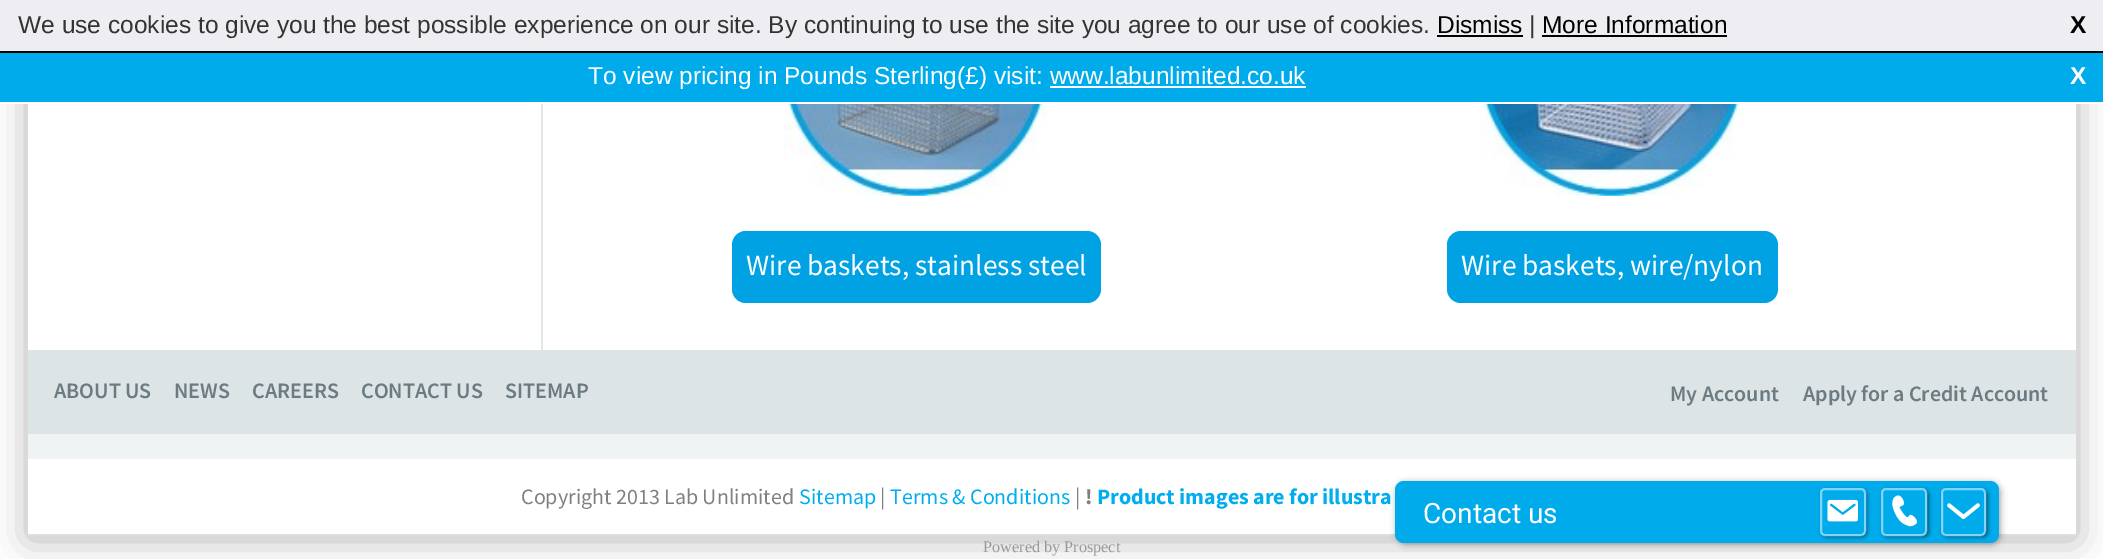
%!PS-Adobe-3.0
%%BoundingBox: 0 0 2103 559
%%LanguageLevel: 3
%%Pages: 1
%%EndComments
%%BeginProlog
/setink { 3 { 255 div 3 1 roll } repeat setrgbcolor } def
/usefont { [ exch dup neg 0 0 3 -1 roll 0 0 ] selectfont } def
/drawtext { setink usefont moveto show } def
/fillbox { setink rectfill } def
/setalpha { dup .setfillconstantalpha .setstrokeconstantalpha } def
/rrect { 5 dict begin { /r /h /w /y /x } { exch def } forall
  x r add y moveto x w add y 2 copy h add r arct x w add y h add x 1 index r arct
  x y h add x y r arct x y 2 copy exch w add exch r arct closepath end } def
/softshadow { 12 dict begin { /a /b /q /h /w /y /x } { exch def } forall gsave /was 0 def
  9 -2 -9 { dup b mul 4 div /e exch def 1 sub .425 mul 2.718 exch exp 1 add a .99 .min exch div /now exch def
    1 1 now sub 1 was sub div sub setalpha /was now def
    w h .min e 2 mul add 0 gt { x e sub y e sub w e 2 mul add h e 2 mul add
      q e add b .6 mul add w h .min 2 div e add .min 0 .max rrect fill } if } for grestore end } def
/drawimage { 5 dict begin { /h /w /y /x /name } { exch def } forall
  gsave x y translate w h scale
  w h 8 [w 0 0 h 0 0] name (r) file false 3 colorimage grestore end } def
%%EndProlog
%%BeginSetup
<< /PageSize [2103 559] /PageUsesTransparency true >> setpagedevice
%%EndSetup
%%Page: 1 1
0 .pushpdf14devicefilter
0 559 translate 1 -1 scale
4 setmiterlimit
0 0 2103 559 255 255 255 fillbox
126 126 126 setink
28 -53 2048 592 0 17.5 0.57 softshadow
0 0 2103 51 238 238 242 fillbox
0 51 2103 2 0 0 0 fillbox
(We use cookies to give you the best possible experience on our site. By continuing to use the site you agree to our use of cookies.) 18 33 /LiberationSans-Regular 24.5 51 51 51 drawtext
(Dismiss) 1437 33 /LiberationSans-Regular 24.5 0 0 0 drawtext
1437 35 86 2 0 0 0 fillbox
(|) 1529 33 /LiberationSans-Regular 24.5 51 51 51 drawtext
(More Information) 1542 33 /LiberationSans-Regular 24.5 0 0 0 drawtext
1542 35 185 2 0 0 0 fillbox
(X) 2070 33 /LiberationSans-Bold 24.5 0 0 0 drawtext
0 53 2103 49 0 171 236 fillbox
0 102 2103 2 255 255 255 fillbox
(To view pricing in Pounds Sterling\(£\) visit: www.labunlimited.co.uk) 588 84 /LiberationSans-Regular 24.5 255 255 255 drawtext
(X) 2070 84 /LiberationSans-Bold 24.5 255 255 255 drawtext
1050 86 256 2 255 255 255 fillbox
28 104 2048 430 255 255 255 fillbox
28 534 2048 2 219 223 224 fillbox
541 104 2 246 223 231 234 fillbox
(assets/img1.rgb) 784 104 263 92 drawimage
0 162 227 setink
732 231 369 72 14 rrect fill
(Wire baskets, stainless steel) 746 275 /SourceSansPro-Regular 29.4 255 255 255 drawtext
(assets/img2.rgb) 1480 104 263 92 drawimage
0 162 227 setink
1447 231 331 72 14 rrect fill
(Wire baskets, wire/nylon) 1461 275 /SourceSansPro-Regular 29.4 255 255 255 drawtext
28 350 2048 84 220 228 230 fillbox
(ABOUT US) 54 398 /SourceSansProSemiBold-SemiBold 22 108 123 129 drawtext
(NEWS) 174 398 /SourceSansProSemiBold-SemiBold 22 108 123 129 drawtext
(CAREERS) 252 398 /SourceSansProSemiBold-SemiBold 22 108 123 129 drawtext
(CONTACT US) 361 398 /SourceSansProSemiBold-SemiBold 22 108 123 129 drawtext
(SITEMAP) 505 398 /SourceSansProSemiBold-SemiBold 22 108 123 129 drawtext
(My Account) 1670 401 /SourceSansProSemiBold-SemiBold 22 108 123 129 drawtext
(Apply for a Credit Account) 1803 401 /SourceSansProSemiBold-SemiBold 22 108 123 129 drawtext
28 434 2048 25 239 243 244 fillbox
(Copyright 2013 Lab Unlimited) 521 504 /SourceSansPro-Regular 22 128 128 128 drawtext
(Sitemap) 799 504 /SourceSansPro-Regular 22 0 174 239 drawtext
(|) 880 504 /SourceSansPro-Regular 22 128 128 128 drawtext
(Terms & Conditions) 890 504 /SourceSansPro-Regular 22 0 174 239 drawtext
(|) 1075 504 /SourceSansPro-Regular 22 128 128 128 drawtext
(!) 1085 504 /SourceSansPro-Bold 22 128 128 128 drawtext
(Product images are for illustra) 1097 504 /SourceSansPro-Bold 22 0 174 239 drawtext
0 0 0 setink
1397 483 603 61 9 3.5 0.4 softshadow
0 171 236 setink
1395 481 604 62 9 rrect fill
(Contact us) 1423 523 /Roboto-Regular 28 255 255 255 drawtext
gsave
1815 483 moveto 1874 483 lineto 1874 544 lineto 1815 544 lineto closepath 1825 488 moveto 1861 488 lineto 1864 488 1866 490 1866 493 curveto 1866 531 lineto 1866 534 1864 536 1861 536 curveto 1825 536 lineto 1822 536 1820 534 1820 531 curveto 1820 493 lineto 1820 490 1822 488 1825 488 curveto closepath eoclip newpath
0 0 0 setink
1822 490 45 47 5 2 0.5 softshadow
grestore
0.5 setalpha
2 setlinewidth
1821 489 44 46 4 rrect stroke
1 setalpha
(assets/img3.rgb) 1827 499 31 23 drawimage
gsave
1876 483 moveto 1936 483 lineto 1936 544 lineto 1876 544 lineto closepath 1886 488 moveto 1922 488 lineto 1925 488 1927 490 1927 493 curveto 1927 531 lineto 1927 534 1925 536 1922 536 curveto 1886 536 lineto 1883 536 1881 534 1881 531 curveto 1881 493 lineto 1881 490 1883 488 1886 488 curveto closepath eoclip newpath
0 0 0 setink
1883 490 46 47 5 2 0.5 softshadow
grestore
0.5 setalpha
1882 489 44 46 4 rrect stroke
1 setalpha
(assets/img4.rgb) 1892 495 25 32 drawimage
gsave
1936 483 moveto 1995 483 lineto 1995 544 lineto 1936 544 lineto closepath 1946 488 moveto 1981 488 lineto 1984 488 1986 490 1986 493 curveto 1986 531 lineto 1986 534 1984 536 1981 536 curveto 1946 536 lineto 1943 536 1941 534 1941 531 curveto 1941 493 lineto 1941 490 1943 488 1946 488 curveto closepath eoclip newpath
0 0 0 setink
1943 490 45 47 5 2 0.5 softshadow
grestore
0.5 setalpha
1942 489 43 46 4 rrect stroke
1 setalpha
(assets/img5.rgb) 1947 503 33 16 drawimage
(Powered by Prospect) 983 552 /LiberationSerif-Regular 16.25 153 153 153 drawtext
.poppdf14devicefilter showpage
%%EOF
